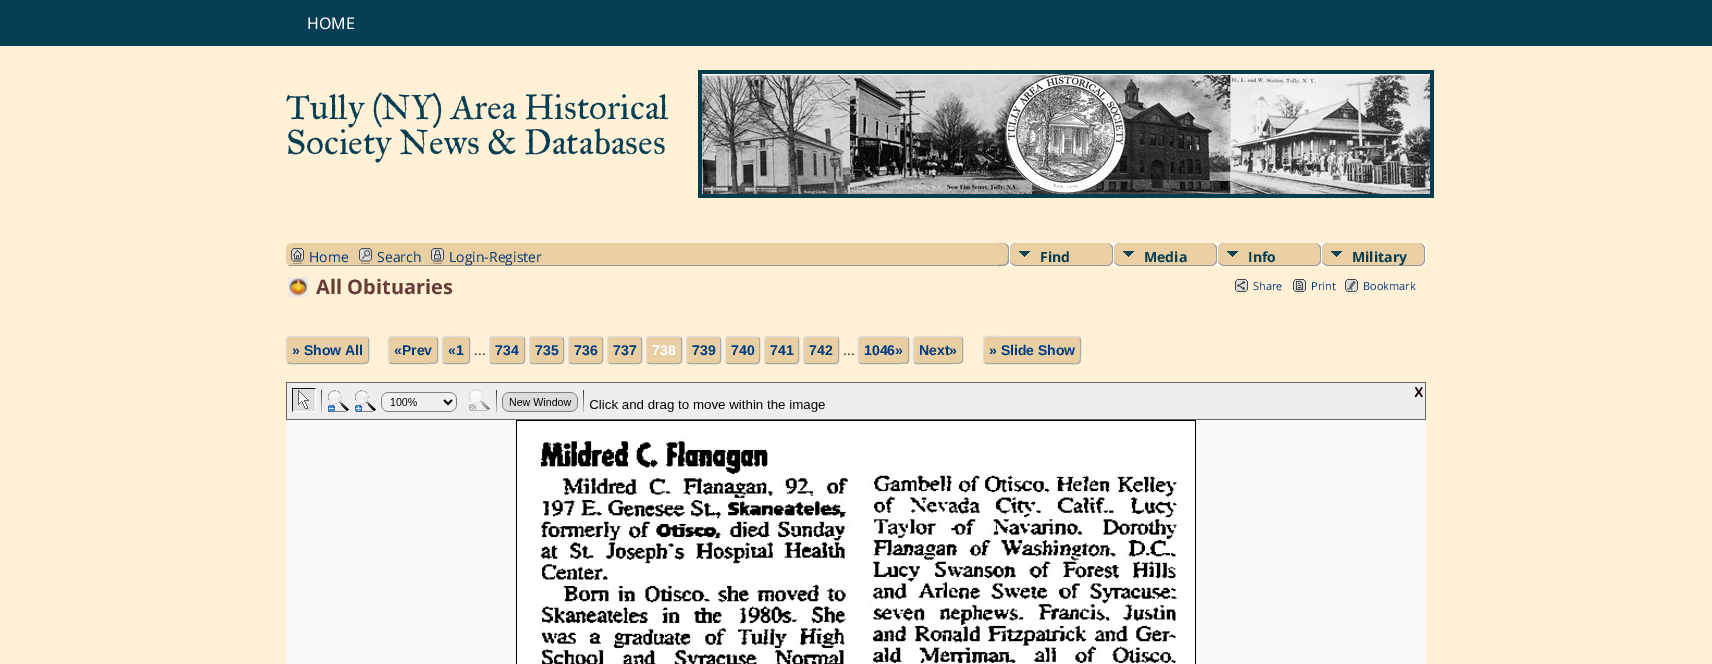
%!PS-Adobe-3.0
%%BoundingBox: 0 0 1712 664
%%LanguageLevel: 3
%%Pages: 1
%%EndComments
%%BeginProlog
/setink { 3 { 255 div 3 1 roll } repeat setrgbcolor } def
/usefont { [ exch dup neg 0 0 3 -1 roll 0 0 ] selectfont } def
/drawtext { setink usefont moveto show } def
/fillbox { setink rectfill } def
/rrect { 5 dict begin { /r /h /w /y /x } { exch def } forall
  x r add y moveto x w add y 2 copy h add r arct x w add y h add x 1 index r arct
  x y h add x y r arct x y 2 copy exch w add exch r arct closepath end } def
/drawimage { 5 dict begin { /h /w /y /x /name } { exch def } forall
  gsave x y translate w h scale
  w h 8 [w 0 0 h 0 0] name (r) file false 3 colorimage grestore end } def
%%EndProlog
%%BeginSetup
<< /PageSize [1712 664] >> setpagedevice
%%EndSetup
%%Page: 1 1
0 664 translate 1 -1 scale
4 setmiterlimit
0 0 1712 664 255 240 214 fillbox
0 0 1712 46 6 62 83 fillbox
(HOME) 307 29 /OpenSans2-Regular 16 255 255 255 drawtext
(Tully \(NY\) Area Historical) 286 119 /IMFELLGreatPrimer-Regular 35 6 62 83 drawtext
(Society News & Databases) 286 154 /IMFELLGreatPrimer-Regular 35 6 62 83 drawtext
(assets/img1.rgb) 698 70 736 128 drawimage
233 207 162 setink
286 243 1140 23 6 rrect fill
289 265 709 1 153 153 153 fillbox
(assets/img2.rgb) 291 248 13 16 drawimage
(Home) 309 262 /OpenSans-Regular 14 0 59 127 drawtext
(assets/img3.rgb) 359 248 13 16 drawimage
(Search) 377 262 /OpenSans-Regular 14 0 59 127 drawtext
(assets/img4.rgb) 431 248 13 16 drawimage
(Login-Register) 449 262 /OpenSans-Regular 14 0 59 127 drawtext
1003 243 423 23 255 255 255 fillbox
233 207 162 setink
998 243 moveto 1003 243 lineto 1006.5 243 1009 245.5 1009 249 curveto 1009 260 lineto 1009 263.5 1006.5 266 1003 266 curveto 998 266 lineto closepath fill
153 153 153 setink
998 243 moveto 1002 243 1008 242.5 1009 248 curveto 1009 261 lineto 1008 266.5 1002 266 998 266 curveto closepath 998 243 moveto 1004 243 lineto 1009 244.5 1008 251 1008 254.5 curveto 1008 264.5 1007.5 265 998 265 curveto closepath eofill
233 207 162 setink
1010 243 103 23 6 rrect fill
(assets/img5.rgb) 1019 251 11 6 drawimage
153 153 153 setink
1016 243 moveto 1107 243 lineto 1110 243 1113 246 1113 249 curveto 1113 260 lineto 1113 263 1110 266 1107 266 curveto 1016 266 lineto 1013 266 1010 263 1010 260 curveto 1010 249 lineto 1010 246 1013 243 1016 243 curveto closepath 1016 243 moveto 1107 243 lineto 1110 243 1112 246 1112 249 curveto 1112 260 lineto 1112 263 1110 265 1107 265 curveto 1016 265 lineto 1013 265 1010 263 1010 260 curveto 1010 249 lineto 1010 246 1013 243 1016 243 curveto closepath eofill
(Find) 1040 262 /OpenSans-Bold 14 6 62 83 drawtext
233 207 162 setink
1114 243 103 23 6 rrect fill
(assets/img5.rgb) 1123 251 11 6 drawimage
153 153 153 setink
1120 243 moveto 1211 243 lineto 1214 243 1217 246 1217 249 curveto 1217 260 lineto 1217 263 1214 266 1211 266 curveto 1120 266 lineto 1117 266 1114 263 1114 260 curveto 1114 249 lineto 1114 246 1117 243 1120 243 curveto closepath 1120 243 moveto 1211 243 lineto 1214 243 1216 246 1216 249 curveto 1216 260 lineto 1216 263 1214 265 1211 265 curveto 1120 265 lineto 1117 265 1114 263 1114 260 curveto 1114 249 lineto 1114 246 1117 243 1120 243 curveto closepath eofill
(Media) 1144 262 /OpenSans-Bold 14 6 62 83 drawtext
233 207 162 setink
1218 243 103 23 6 rrect fill
(assets/img5.rgb) 1227 251 11 6 drawimage
153 153 153 setink
1224 243 moveto 1315 243 lineto 1318 243 1321 246 1321 249 curveto 1321 260 lineto 1321 263 1318 266 1315 266 curveto 1224 266 lineto 1221 266 1218 263 1218 260 curveto 1218 249 lineto 1218 246 1221 243 1224 243 curveto closepath 1224 243 moveto 1315 243 lineto 1318 243 1320 246 1320 249 curveto 1320 260 lineto 1320 263 1318 265 1315 265 curveto 1224 265 lineto 1221 265 1218 263 1218 260 curveto 1218 249 lineto 1218 246 1221 243 1224 243 curveto closepath eofill
(Info) 1248 262 /OpenSans-Bold 14 6 62 83 drawtext
233 207 162 setink
1322 243 103 23 6 rrect fill
(assets/img5.rgb) 1331 251 11 6 drawimage
153 153 153 setink
1328 243 moveto 1419 243 lineto 1422 243 1425 246 1425 249 curveto 1425 260 lineto 1425 263 1422 266 1419 266 curveto 1328 266 lineto 1325 266 1322 263 1322 260 curveto 1322 249 lineto 1322 246 1325 243 1328 243 curveto closepath 1328 243 moveto 1419 243 lineto 1422 243 1424 246 1424 249 curveto 1424 260 lineto 1424 263 1422 265 1419 265 curveto 1328 265 lineto 1325 265 1322 263 1322 260 curveto 1322 249 lineto 1322 246 1325 243 1328 243 curveto closepath eofill
(Military) 1352 262 /OpenSans-Bold 14 6 62 83 drawtext
(assets/img6.rgb) 288 277 20 20 drawimage
(All Obituaries) 316 294 /OpenSans-Bold 20 102 60 54 drawtext
(assets/img7.rgb) 1235 279 13 15 drawimage
(Share) 1253 290 /OpenSans-Regular 11 0 59 127 drawtext
(assets/img8.rgb) 1293 279 13 15 drawimage
(Print) 1311 290 /OpenSans-Regular 11 0 59 127 drawtext
(assets/img9.rgb) 1345 279 13 15 drawimage
(Bookmark) 1363 290 /OpenSans-Regular 11 0 59 127 drawtext
233 207 162 setink
286 336 83 28 4 rrect fill
170 170 170 setink
367.5 337.5 moveto 369.5 339.5 368.5 344 368.5 346.5 curveto 368.5 365.5 372 363.5 352.5 363.5 curveto 290 363.5 lineto 287.5 362.5 lineto stroke
221 221 221 setink
287.5 362.5 moveto 285.5 360.5 286.5 356 286.5 353.5 curveto 286.5 334.5 283 336.5 302.5 336.5 curveto 365 336.5 lineto 367.5 337.5 lineto stroke
(» Show All) 292 355 /LiberationSans-Bold 14 0 59 127 drawtext
233 207 162 setink
388 336 50 28 4 rrect fill
170 170 170 setink
436.5 337.5 moveto 438.5 340 437.5 347.5 437.5 350 curveto 437.5 363 440 363.5 427 363.5 curveto 399 363.5 lineto 397.5 363.5 391.5 364.5 389.5 362.5 curveto stroke
221 221 221 setink
389.5 362.5 moveto 387.5 360 388.5 352.5 388.5 350 curveto 388.5 337 386 336.5 399 336.5 curveto 427 336.5 lineto 428.5 336.5 434.5 335.5 436.5 337.5 curveto stroke
(«Prev) 394 355 /LiberationSans-Bold 14 0 59 127 drawtext
233 207 162 setink
442 336 28 28 4 rrect fill
170 170 170 setink
468.5 337.5 moveto 470 339 469.5 341.5 469.5 343.5 curveto 469.5 350 lineto 469.5 365.5 471.5 363.5 456 363.5 curveto 449.5 363.5 lineto 447.5 363.5 445 364 443.5 362.5 curveto stroke
221 221 221 setink
443.5 362.5 moveto 442 361 442.5 358.5 442.5 356.5 curveto 442.5 350 lineto 442.5 334.5 440.5 336.5 456 336.5 curveto 462.5 336.5 lineto 464.5 336.5 467 336 468.5 337.5 curveto stroke
(«1) 448 355 /LiberationSans-Bold 14 0 59 127 drawtext
(...) 474 355 /LiberationSans-Regular 14 0 0 0 drawtext
233 207 162 setink
489 336 36 28 4 rrect fill
170 170 170 setink
523.5 337.5 moveto 524 338 524.5 339 524.5 340 curveto 524.5 360 lineto 524.5 361 524 362 523.5 362.5 curveto 523 363 522 363.5 521 363.5 curveto 493 363.5 lineto 492 363.5 491 363 490.5 362.5 curveto stroke
221 221 221 setink
490.5 362.5 moveto 490 362 489.5 361 489.5 360 curveto 489.5 340 lineto 489.5 339 490 338 490.5 337.5 curveto 491 337 492 336.5 493 336.5 curveto 521 336.5 lineto 522 336.5 523 337 523.5 337.5 curveto stroke
(734) 495 355 /LiberationSans-Bold 14 0 59 127 drawtext
233 207 162 setink
529 336 35 28 4 rrect fill
170 170 170 setink
562.5 337.5 moveto 563 338 563.5 339 563.5 340 curveto 563.5 360 lineto 563.5 361 563 362 562.5 362.5 curveto 562 363 561 363.5 560 363.5 curveto 533 363.5 lineto 532 363.5 531 363 530.5 362.5 curveto stroke
221 221 221 setink
530.5 362.5 moveto 530 362 529.5 361 529.5 360 curveto 529.5 340 lineto 529.5 339 530 338 530.5 337.5 curveto 531 337 532 336.5 533 336.5 curveto 560 336.5 lineto 561 336.5 562 337 562.5 337.5 curveto stroke
(735) 535 355 /LiberationSans-Bold 14 0 59 127 drawtext
233 207 162 setink
568 336 35 28 4 rrect fill
170 170 170 setink
601.5 337.5 moveto 602 338 602.5 339 602.5 340 curveto 602.5 360 lineto 602.5 361 602 362 601.5 362.5 curveto 601 363 600 363.5 599 363.5 curveto 572 363.5 lineto 571 363.5 570 363 569.5 362.5 curveto stroke
221 221 221 setink
569.5 362.5 moveto 569 362 568.5 361 568.5 360 curveto 568.5 340 lineto 568.5 339 569 338 569.5 337.5 curveto 570 337 571 336.5 572 336.5 curveto 599 336.5 lineto 600 336.5 601 337 601.5 337.5 curveto stroke
(736) 574 355 /LiberationSans-Bold 14 0 59 127 drawtext
233 207 162 setink
607 336 35 28 4 rrect fill
170 170 170 setink
640.5 337.5 moveto 641 338 641.5 339 641.5 340 curveto 641.5 360 lineto 641.5 361 641 362 640.5 362.5 curveto 640 363 639 363.5 638 363.5 curveto 611 363.5 lineto 610 363.5 609 363 608.5 362.5 curveto stroke
221 221 221 setink
608.5 362.5 moveto 608 362 607.5 361 607.5 360 curveto 607.5 340 lineto 607.5 339 608 338 608.5 337.5 curveto 609 337 610 336.5 611 336.5 curveto 638 336.5 lineto 639 336.5 640 337 640.5 337.5 curveto stroke
(737) 613 355 /LiberationSans-Bold 14 0 59 127 drawtext
233 207 162 setink
646 336 36 28 4 rrect fill
170 170 170 setink
680.5 337.5 moveto 681 338 681.5 339 681.5 340 curveto 681.5 360 lineto 681.5 361 681 362 680.5 362.5 curveto 680 363 679 363.5 678 363.5 curveto 650 363.5 lineto 649 363.5 648 363 647.5 362.5 curveto stroke
221 221 221 setink
647.5 362.5 moveto 647 362 646.5 361 646.5 360 curveto 646.5 340 lineto 646.5 339 647 338 647.5 337.5 curveto 648 337 649 336.5 650 336.5 curveto 678 336.5 lineto 679 336.5 680 337 680.5 337.5 curveto stroke
(738) 652 355 /LiberationSans-Bold 14 255 255 255 drawtext
233 207 162 setink
686 336 35 28 4 rrect fill
170 170 170 setink
719.5 337.5 moveto 720 338 720.5 339 720.5 340 curveto 720.5 360 lineto 720.5 361 720 362 719.5 362.5 curveto 719 363 718 363.5 717 363.5 curveto 690 363.5 lineto 689 363.5 688 363 687.5 362.5 curveto stroke
221 221 221 setink
687.5 362.5 moveto 687 362 686.5 361 686.5 360 curveto 686.5 340 lineto 686.5 339 687 338 687.5 337.5 curveto 688 337 689 336.5 690 336.5 curveto 717 336.5 lineto 718 336.5 719 337 719.5 337.5 curveto stroke
(739) 692 355 /LiberationSans-Bold 14 0 59 127 drawtext
233 207 162 setink
725 336 35 28 4 rrect fill
170 170 170 setink
758.5 337.5 moveto 759 338 759.5 339 759.5 340 curveto 759.5 360 lineto 759.5 361 759 362 758.5 362.5 curveto 758 363 757 363.5 756 363.5 curveto 729 363.5 lineto 728 363.5 727 363 726.5 362.5 curveto stroke
221 221 221 setink
726.5 362.5 moveto 726 362 725.5 361 725.5 360 curveto 725.5 340 lineto 725.5 339 726 338 726.5 337.5 curveto 727 337 728 336.5 729 336.5 curveto 756 336.5 lineto 757 336.5 758 337 758.5 337.5 curveto stroke
(740) 731 355 /LiberationSans-Bold 14 0 59 127 drawtext
233 207 162 setink
764 336 35 28 4 rrect fill
170 170 170 setink
797.5 337.5 moveto 798 338 798.5 339 798.5 340 curveto 798.5 360 lineto 798.5 361 798 362 797.5 362.5 curveto 797 363 796 363.5 795 363.5 curveto 768 363.5 lineto 767 363.5 766 363 765.5 362.5 curveto stroke
221 221 221 setink
765.5 362.5 moveto 765 362 764.5 361 764.5 360 curveto 764.5 340 lineto 764.5 339 765 338 765.5 337.5 curveto 766 337 767 336.5 768 336.5 curveto 795 336.5 lineto 796 336.5 797 337 797.5 337.5 curveto stroke
(741) 770 355 /LiberationSans-Bold 14 0 59 127 drawtext
233 207 162 setink
803 336 36 28 4 rrect fill
170 170 170 setink
837.5 337.5 moveto 838 338 838.5 339 838.5 340 curveto 838.5 360 lineto 838.5 361 838 362 837.5 362.5 curveto 837 363 836 363.5 835 363.5 curveto 807 363.5 lineto 806 363.5 805 363 804.5 362.5 curveto stroke
221 221 221 setink
804.5 362.5 moveto 804 362 803.5 361 803.5 360 curveto 803.5 340 lineto 803.5 339 804 338 804.5 337.5 curveto 805 337 806 336.5 807 336.5 curveto 835 336.5 lineto 836 336.5 837 337 837.5 337.5 curveto stroke
(742) 809 355 /LiberationSans-Bold 14 0 59 127 drawtext
(...) 843 355 /LiberationSans-Regular 14 0 0 0 drawtext
233 207 162 setink
858 336 51 28 4 rrect fill
170 170 170 setink
907.5 337.5 moveto 909.5 340 908.5 347.5 908.5 350 curveto 908.5 363.5 911 363.5 898 363.5 curveto 869 363.5 lineto 868 363.5 861.5 364.5 859.5 362.5 curveto stroke
221 221 221 setink
859.5 362.5 moveto 857.5 360 858.5 352.5 858.5 350 curveto 858.5 336.5 856 336.5 869 336.5 curveto 898 336.5 lineto 899 336.5 905.5 335.5 907.5 337.5 curveto stroke
(1046») 864 355 /LiberationSans-Bold 14 0 59 127 drawtext
233 207 162 setink
913 336 50 28 4 rrect fill
170 170 170 setink
961.5 337.5 moveto 963.5 340 962.5 347.5 962.5 350 curveto 962.5 363 965 363.5 952 363.5 curveto 924 363.5 lineto 922.5 363.5 916.5 364.5 914.5 362.5 curveto stroke
221 221 221 setink
914.5 362.5 moveto 912.5 360 913.5 352.5 913.5 350 curveto 913.5 337 911 336.5 924 336.5 curveto 952 336.5 lineto 953.5 336.5 959.5 335.5 961.5 337.5 curveto stroke
(Next») 919 355 /LiberationSans-Bold 14 0 59 127 drawtext
233 207 162 setink
983 336 98 28 4 rrect fill
170 170 170 setink
1079.5 337.5 moveto 1081.5 340 1080.5 347.5 1080.5 350 curveto 1080.5 367 1081.5 363.5 1062 363.5 curveto 987 363.5 lineto 984.5 362.5 lineto stroke
221 221 221 setink
984.5 362.5 moveto 982.5 360 983.5 352.5 983.5 350 curveto 983.5 333 982.5 336.5 1002 336.5 curveto 1077 336.5 lineto 1079.5 337.5 lineto stroke
(» Slide Show) 989 355 /LiberationSans-Bold 14 0 59 127 drawtext
(assets/img10.rgb) 286 382 1140 282 drawimage
showpage
%%EOF
